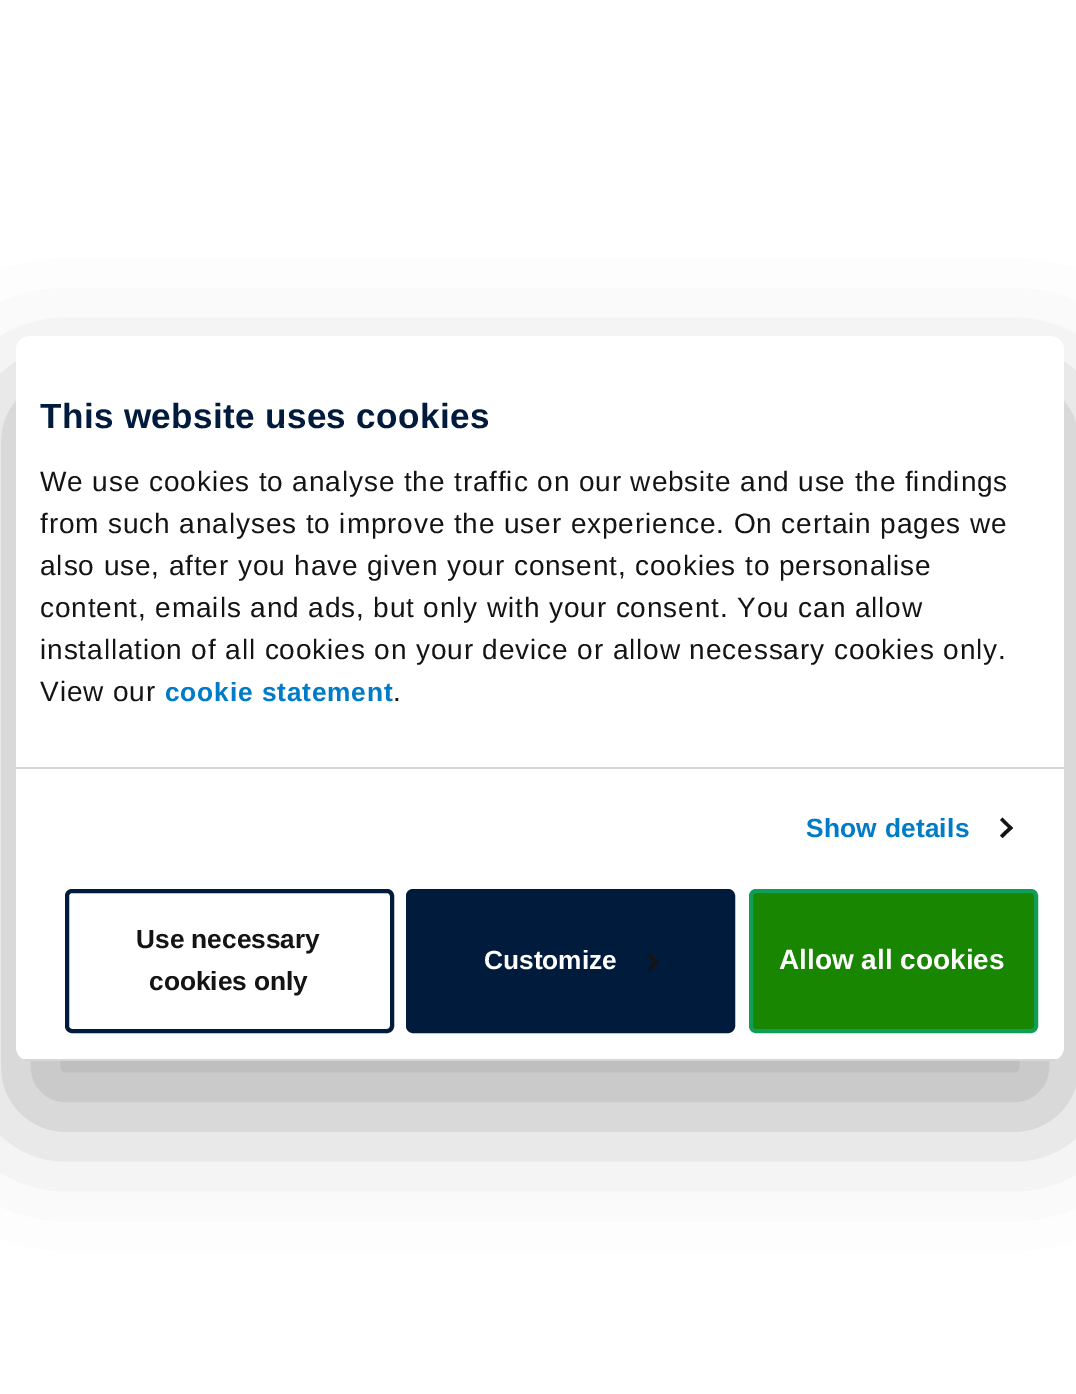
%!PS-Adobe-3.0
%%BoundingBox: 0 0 1076 1394
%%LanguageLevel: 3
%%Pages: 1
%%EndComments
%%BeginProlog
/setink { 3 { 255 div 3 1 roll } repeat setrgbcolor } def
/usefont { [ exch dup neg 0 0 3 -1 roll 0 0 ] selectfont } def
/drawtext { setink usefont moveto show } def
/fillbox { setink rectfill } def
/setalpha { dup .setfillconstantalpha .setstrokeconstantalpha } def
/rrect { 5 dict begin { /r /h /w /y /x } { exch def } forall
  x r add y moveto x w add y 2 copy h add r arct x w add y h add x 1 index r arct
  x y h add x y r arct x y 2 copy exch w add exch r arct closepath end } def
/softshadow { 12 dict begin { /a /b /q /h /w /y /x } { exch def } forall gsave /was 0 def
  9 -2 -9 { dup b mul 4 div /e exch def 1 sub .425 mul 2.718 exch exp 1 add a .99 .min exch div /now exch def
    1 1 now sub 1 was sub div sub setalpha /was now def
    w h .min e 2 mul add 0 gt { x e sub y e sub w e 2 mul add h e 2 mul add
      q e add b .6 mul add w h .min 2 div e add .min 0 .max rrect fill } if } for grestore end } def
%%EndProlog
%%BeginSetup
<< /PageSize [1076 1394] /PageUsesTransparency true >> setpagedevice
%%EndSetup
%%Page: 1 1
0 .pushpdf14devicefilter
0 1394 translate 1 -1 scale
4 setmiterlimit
0 0 1076 1394 255 255 255 fillbox
0 0 0 setink
16 392 1048 725 14 59.5 0.3 softshadow
255 255 255 setink
16 336 1048 725 14 rrect fill
16 767 1048 2 214 214 214 fillbox
/LiberationSans-Bold 35 usefont
1 27 60 setink
40 428 moveto 0.4 0 (This website uses cookies) ashow
/LiberationSans-Regular 28 usefont
20 20 20 setink
40 491 moveto 0.88 0 (We use cookies to analyse the traffic on our website and use the findings) ashow
40 533 moveto 0.88 0 (from such analyses to improve the user experience. On certain pages we) ashow
40 575 moveto 0.88 0 (also use, after you have given your consent, cookies to personalise) ashow
40 617 moveto 0.88 0 (content, emails and ads, but only with your consent. You can allow) ashow
40 659 moveto 0.88 0 (installation of all cookies on your device or allow necessary cookies only.) ashow
40 701 moveto 0.88 0 (View our) ashow
/LiberationSans-Bold 26.25 usefont
0 123 199 setink
165 701 moveto 0.88 0 (cookie statement) ashow
/LiberationSans-Regular 28 usefont
20 20 20 setink
393 701 moveto 0.88 0 (.) ashow
/LiberationSans-Bold 26.25 usefont
0 123 199 setink
806 837 moveto 0.25 0 (Show details) ashow
20 20 20 setink
1002.5 817.5 moveto 1013 828 lineto 1010.5 830 lineto 1000 820 lineto closepath fill
1010.5 825.5 moveto 1013 828 lineto 1002.5 838 lineto 1000 835.5 lineto closepath fill
gsave
16 336 1048 725 14 rrect clip newpath
16 1059 1048 2 214 214 214 fillbox
grestore
1 27 60 setink
4 setlinewidth
67 891 325 140 5 rrect stroke
(Use necessary) 136 948 /LiberationSans-Bold 26.25 20 20 20 drawtext
(cookies only) 149 990 /LiberationSans-Bold 26.25 20 20 20 drawtext
1 27 60 setink
408 891 325 140 5 rrect gsave fill grestore
stroke
(Customize) 484 969 /LiberationSans-Bold 26.25 255 255 255 drawtext
20 20 20 setink
649.5 953 moveto 658.5 962 lineto 656 964.5 lineto 647 955.5 lineto closepath fill
656 959.5 moveto 658.5 962 lineto 649.5 971.5 lineto 647 969 lineto closepath fill
24 134 0 setink
751 891 285 140 5 rrect gsave fill grestore
15 157 88 setink
stroke
(Allow all cookies) 779 969 /LiberationSans-Bold 28 255 255 255 drawtext
.poppdf14devicefilter showpage
%%EOF
